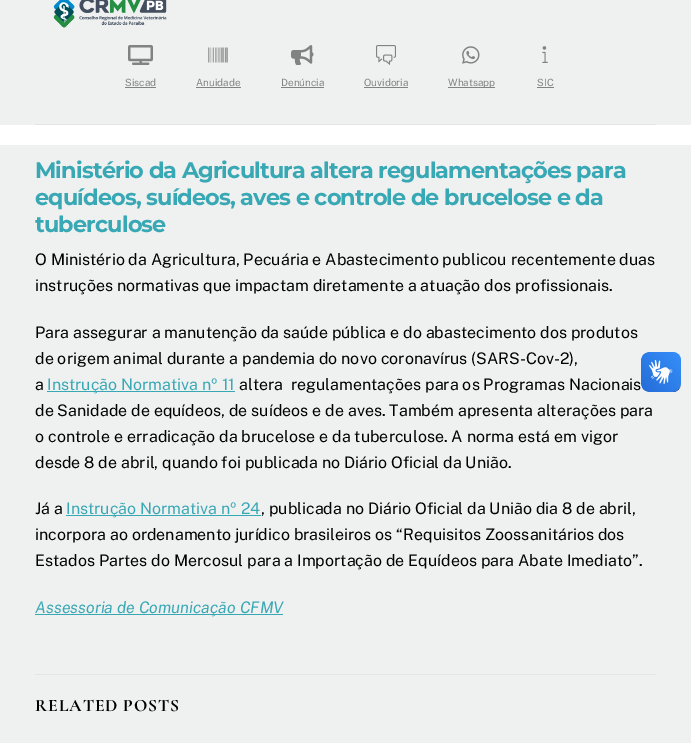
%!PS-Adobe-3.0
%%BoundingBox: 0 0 691 743
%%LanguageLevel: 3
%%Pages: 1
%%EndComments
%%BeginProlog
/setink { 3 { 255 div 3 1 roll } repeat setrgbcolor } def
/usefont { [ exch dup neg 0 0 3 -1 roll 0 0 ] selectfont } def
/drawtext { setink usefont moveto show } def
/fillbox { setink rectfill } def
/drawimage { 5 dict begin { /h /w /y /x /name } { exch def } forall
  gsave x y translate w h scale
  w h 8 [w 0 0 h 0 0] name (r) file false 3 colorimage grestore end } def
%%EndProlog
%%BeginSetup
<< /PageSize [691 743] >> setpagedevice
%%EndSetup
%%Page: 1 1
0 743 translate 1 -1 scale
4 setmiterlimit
0 0 691 743 255 255 255 fillbox
0 0 691 125 239 241 241 fillbox
35 124 621 1 227 229 229 fillbox
(assets/img1.rgb) 53 0 114 28 drawimage
(assets/img2.rgb) 128 45 25 20 drawimage
(Siscad) 125 86 /PublicSans-Regular 10 130 130 130 drawtext
125 87 31 1 130 130 130 fillbox
(assets/img3.rgb) 208 47 20 16 drawimage
(Anuidade) 196 86 /PublicSans-Regular 10 130 130 130 drawtext
196 87 45 1 130 130 130 fillbox
(assets/img4.rgb) 291 45 23 20 drawimage
(Denúncia) 281 86 /PublicSans-Regular 10 130 130 130 drawtext
281 87 43 1 130 130 130 fillbox
(assets/img5.rgb) 376 45 20 20 drawimage
(Ouvidoria) 364 86 /PublicSans-Regular 10 130 130 130 drawtext
364 87 44 1 130 130 130 fillbox
(assets/img6.rgb) 462 46 18 18 drawimage
448 87 47 1 130 130 130 fillbox
(Whatsapp) 448 86 /PublicSans-Regular 10 130 130 130 drawtext
(assets/img7.rgb) 542 46 6 17 drawimage
(SIC) 537 86 /PublicSans-Regular 10 130 130 130 drawtext
537 87 17 1 130 130 130 fillbox
0 145 691 598 239 241 241 fillbox
/Montserrat-Bold 22.4 usefont
57 168 181 setink
35 178 moveto -0.9 0 (Ministério da Agricultura altera regulamentações para) ashow
35 205 moveto -0.9 0 (equídeos, suídeos, aves e controle de brucelose e da) ashow
35 232 moveto -0.9 0 (tuberculose) ashow
(O Ministério da Agricultura, Pecuária e Abastecimento publicou recentemente duas) 35 265 /PublicSans-Regular 16 0 0 0 drawtext
(instruções normativas que impactam diretamente a atuação dos profissionais.) 35 291 /PublicSans-Regular 16 0 0 0 drawtext
(Para assegurar a manutenção da saúde pública e do abastecimento dos produtos) 35 338 /PublicSans-Regular 16 0 0 0 drawtext
(de origem animal durante a pandemia do novo coronavírus \(SARS-Cov-2\),) 35 364 /PublicSans-Regular 16 0 0 0 drawtext
(a) 35 390 /PublicSans-Regular 16 0 0 0 drawtext
47 391 188 1 57 168 181 fillbox
(Instrução Normativa nº 11) 47 390 /PublicSans-Regular 16 57 168 181 drawtext
(altera  regulamentações para os Programas Nacionais) 239 390 /PublicSans-Regular 16 0 0 0 drawtext
(de Sanidade de equídeos, de suídeos e de aves. Também apresenta alterações para) 35 416 /PublicSans-Regular 16 0 0 0 drawtext
(o controle e erradicação da brucelose e da tuberculose. A norma está em vigor) 35 442 /PublicSans-Regular 16 0 0 0 drawtext
(desde 8 de abril, quando foi publicada no Diário Oficial da União.) 35 468 /PublicSans-Regular 16 0 0 0 drawtext
(Já a) 35 514 /PublicSans-Regular 16 0 0 0 drawtext
66 515 195 1 57 168 181 fillbox
(Instrução Normativa nº 24) 66 514 /PublicSans-Regular 16 57 168 181 drawtext
(, publicada no Diário Oficial da União dia 8 de abril,) 261 514 /PublicSans-Regular 16 0 0 0 drawtext
(incorpora ao ordenamento jurídico brasileiros os “Requisitos Zoossanitários dos) 35 540 /PublicSans-Regular 16 0 0 0 drawtext
(Estados Partes do Mercosul para a Importação de Equídeos para Abate Imediato”.) 35 566 /PublicSans-Regular 16 0 0 0 drawtext
35 614 248 1 57 168 181 fillbox
(Assessoria de Comunicação CFMV) 35 613 /PublicSans-Italic 16 57 168 181 drawtext
35 674 621 1 227 229 229 fillbox
/CormorantGaramond-Bold 17.5 usefont
0 0 0 setink
35 711 moveto 0.9 0 (RELATED POSTS) ashow
(assets/img8.rgb) 641 352 40 40 drawimage
(assets/img9.rgb) 641 352 40 40 drawimage
showpage
%%EOF
